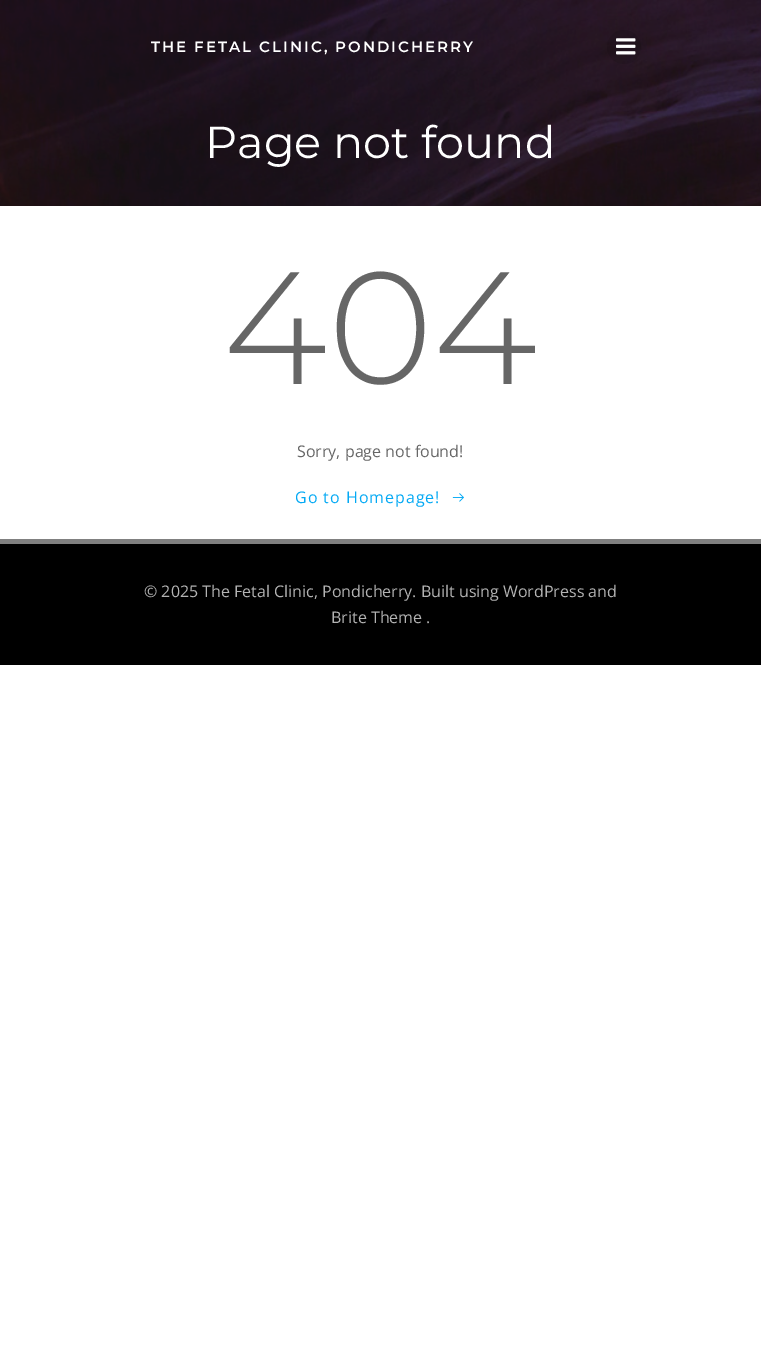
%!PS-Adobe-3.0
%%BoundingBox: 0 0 761 1345
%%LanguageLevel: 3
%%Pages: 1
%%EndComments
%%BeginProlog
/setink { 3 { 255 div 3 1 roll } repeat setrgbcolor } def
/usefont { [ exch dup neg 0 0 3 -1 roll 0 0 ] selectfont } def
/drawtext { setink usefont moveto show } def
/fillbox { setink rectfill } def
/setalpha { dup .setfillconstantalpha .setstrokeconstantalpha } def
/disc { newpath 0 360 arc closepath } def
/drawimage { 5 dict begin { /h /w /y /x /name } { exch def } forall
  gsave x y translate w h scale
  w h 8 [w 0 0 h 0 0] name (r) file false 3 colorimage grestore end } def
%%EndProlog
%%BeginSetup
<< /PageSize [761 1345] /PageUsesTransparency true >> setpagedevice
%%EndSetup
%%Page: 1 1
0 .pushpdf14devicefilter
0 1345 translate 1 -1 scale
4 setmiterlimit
0 0 761 1345 255 255 255 fillbox
(assets/img2.rgb) 0 0 761 206 drawimage
/Montserrat-SemiBold 15 usefont
151 52 moveto 2 0 (THE FETAL CLINIC, PONDICHERRY) ashow
0.1 setalpha
0 0 0 setink
624 47 17 disc fill
1 setalpha
(assets/img1.rgb) 616 38 20 17 drawimage
(Page not found) 205 158 /Montserrat-Regular 44.75 255 255 255 drawtext
(404) 223 384 /Montserrat-Light 160 102 102 102 drawtext
(Sorry, page not found!) 297 457 /OpenSans-Regular 16 102 102 102 drawtext
3 169 244 setink
295 503 moveto 1 0 (Go to Homepage!) ashow
(assets/img3.rgb) 452 493 12 9 drawimage
0 544 761 121 0 0 0 fillbox
0 539 761 5 128 128 128 fillbox
(© 2025 The Fetal Clinic, Pondicherry. Built using WordPress and) 144 597 /OpenSans-Regular 16 179 179 179 drawtext
(Brite Theme .) 331 623 /OpenSans-Regular 16 179 179 179 drawtext
.poppdf14devicefilter showpage
%%EOF
